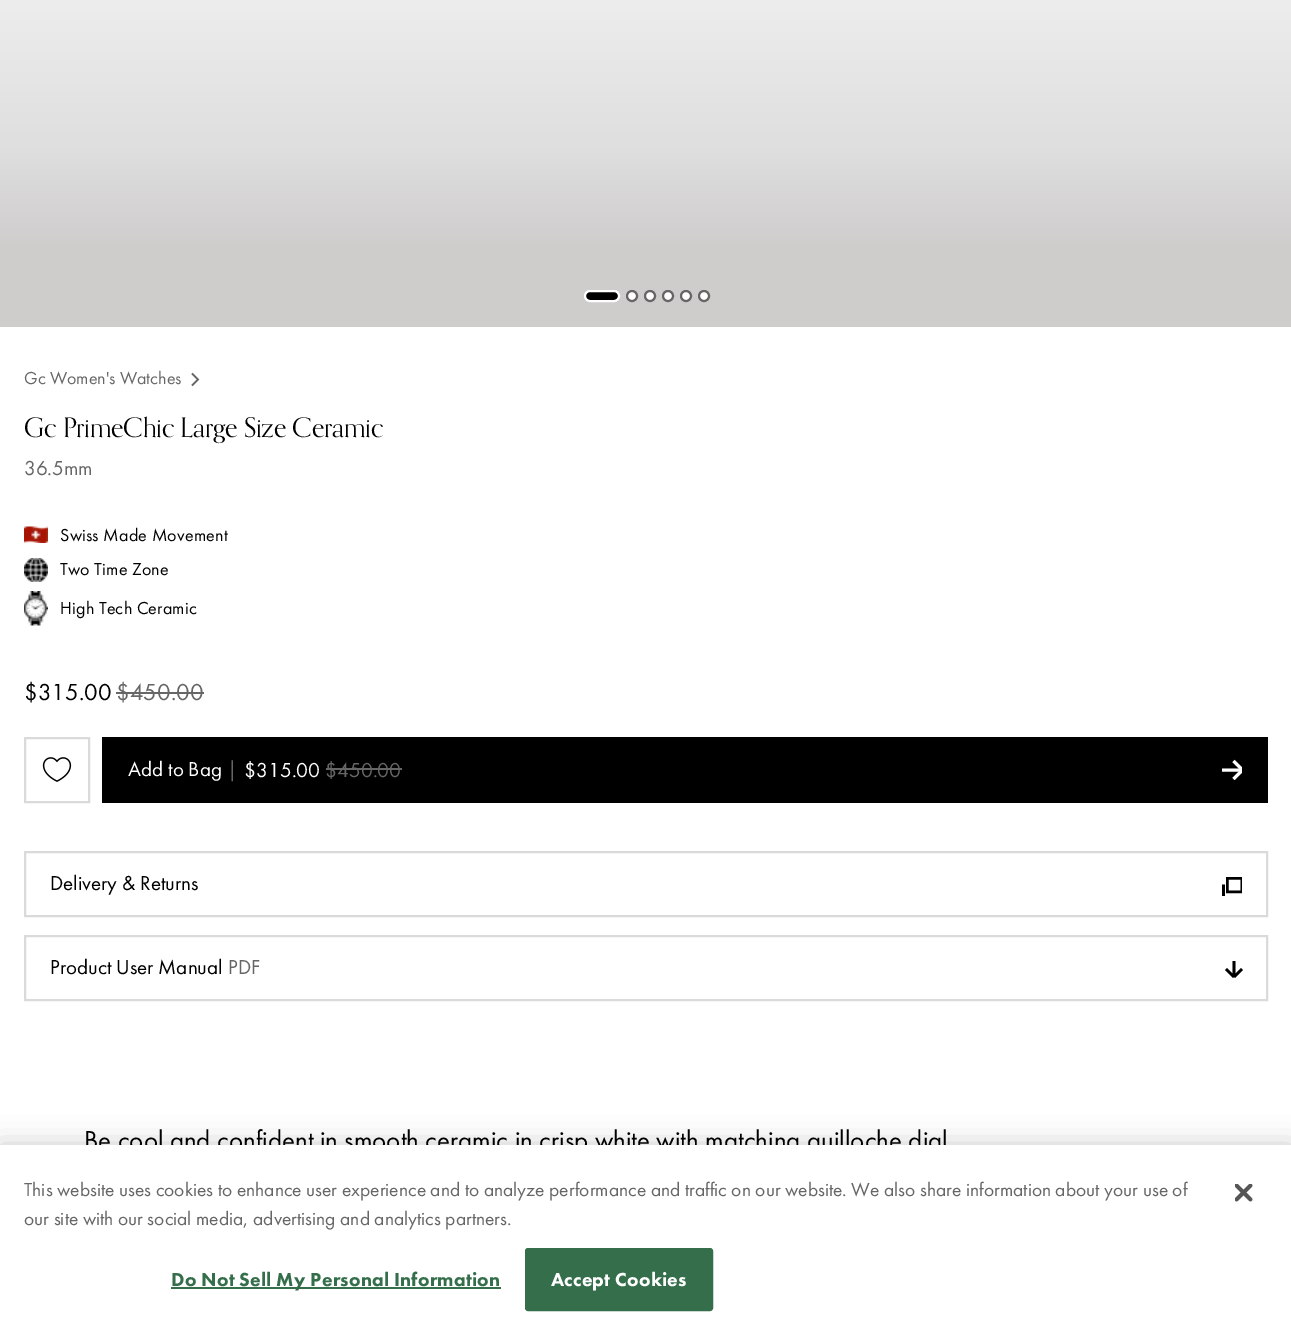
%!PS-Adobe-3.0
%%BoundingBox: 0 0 1291 1326
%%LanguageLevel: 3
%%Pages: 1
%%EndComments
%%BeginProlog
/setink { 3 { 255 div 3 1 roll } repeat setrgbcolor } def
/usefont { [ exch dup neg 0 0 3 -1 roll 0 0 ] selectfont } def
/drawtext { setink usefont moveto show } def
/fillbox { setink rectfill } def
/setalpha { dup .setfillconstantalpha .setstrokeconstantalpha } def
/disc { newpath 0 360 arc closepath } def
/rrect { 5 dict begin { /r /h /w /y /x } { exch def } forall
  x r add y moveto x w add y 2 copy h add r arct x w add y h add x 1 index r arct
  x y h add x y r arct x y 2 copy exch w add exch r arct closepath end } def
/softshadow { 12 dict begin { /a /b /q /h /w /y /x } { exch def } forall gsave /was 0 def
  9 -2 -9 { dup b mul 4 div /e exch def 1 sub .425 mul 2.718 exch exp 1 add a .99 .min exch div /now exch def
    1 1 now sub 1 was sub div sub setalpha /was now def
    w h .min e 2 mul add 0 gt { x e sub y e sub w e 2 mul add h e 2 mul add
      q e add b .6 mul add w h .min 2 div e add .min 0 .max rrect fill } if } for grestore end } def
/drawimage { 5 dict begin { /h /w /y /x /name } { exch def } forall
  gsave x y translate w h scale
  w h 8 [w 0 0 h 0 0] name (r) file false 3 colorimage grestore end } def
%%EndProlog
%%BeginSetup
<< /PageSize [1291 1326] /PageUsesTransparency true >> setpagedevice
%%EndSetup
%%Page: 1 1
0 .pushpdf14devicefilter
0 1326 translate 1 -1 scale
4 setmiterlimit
0 0 1291 1326 255 255 255 fillbox
gsave 0 0 moveto 1291 0 lineto 1291 327 lineto 0 327 lineto closepath clip newpath
<< /ShadingType 2 /ColorSpace /DeviceRGB /Coords [646 327 646 -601] /Extend [true true] /Function << /FunctionType 3 /Domain [0 1] /Functions [<< /FunctionType 2 /Domain [0 1] /C0 [0.812 0.8 0.8] /C1 [0.812 0.8 0.8] /N 1 >> << /FunctionType 2 /Domain [0 1] /C0 [0.812 0.8 0.8] /C1 [0.871 0.871 0.871] /N 1 >> << /FunctionType 2 /Domain [0 1] /C0 [0.871 0.871 0.871] /C1 [1 1 1] /N 1 >> << /FunctionType 2 /Domain [0 1] /C0 [1 1 1] /C1 [1 1 1] /N 1 >> << /FunctionType 2 /Domain [0 1] /C0 [1 1 1] /C1 [0.933 0.933 0.933] /N 1 >> << /FunctionType 2 /Domain [0 1] /C0 [0.933 0.933 0.933] /C1 [0.933 0.933 0.933] /N 1 >>] /Bounds [0.08 0.19 0.54 0.56 0.81] /Encode [0 1 0 1 0 1 0 1 0 1 0 1] >> >> shfill grestore
0 0 0 setink
585 291 34 10 5 rrect gsave fill grestore
255 255 255 setink
2 setlinewidth
stroke
632 296 5 disc gsave fill grestore
102 102 102 setink
stroke
255 255 255 setink
650 296 5 disc gsave fill grestore
102 102 102 setink
stroke
255 255 255 setink
668 296 5 disc gsave fill grestore
102 102 102 setink
stroke
255 255 255 setink
686 296 5 disc gsave fill grestore
102 102 102 setink
stroke
255 255 255 setink
704 296 5 disc gsave fill grestore
102 102 102 setink
stroke
(Gc Women's Watches) 24 384 /FuturaPT-Regular 18 102 102 102 drawtext
1.5 setlinewidth
192 373.5 moveto 198 379.5 lineto 192 385.5 lineto stroke
/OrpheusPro-Regular 27 usefont
0 0 0 setink
24 437 moveto -0.25 0 (Gc PrimeChic Large Size Ceramic) ashow
/FuturaPT-Regular 21 usefont
102 102 102 setink
24 475 moveto -0.25 0 (36.5mm) ashow
(assets/img1.rgb) 24 526 24 17 drawimage
/FuturaPT-Regular 18 usefont
0 0 0 setink
60 541 moveto 0.2 0 (Swiss Made Movement) ashow
(assets/img2.rgb) 24 558 24 24 drawimage
60 575 moveto 0.2 0 (Two Time Zone) ashow
(assets/img3.rgb) 24 591 24 35 drawimage
60 614 moveto 0.2 0 (High Tech Ceramic) ashow
($315.00) 24 700 /FuturaPT-Regular 24 0 0 0 drawtext
($450.00) 116 700 /FuturaPT-Regular 24 102 102 102 drawtext
116 692 88 2 102 102 102 fillbox
218 218 218 setink
2 setlinewidth
25 738 64 64 rectstroke
(assets/img4.rgb) 42 757 30 25 drawimage
102 737 1166 66 0 0 0 fillbox
(Add to Bag) 128 776 /FuturaPT-Regular 21 255 255 255 drawtext
(|) 227 776 /FuturaPT-Regular 21 102 102 102 drawtext
($315.00) 244 777 /FuturaPT-Regular 21 255 255 255 drawtext
($450.00) 325 777 /FuturaPT-Regular 21 102 102 102 drawtext
326 768 76 2 102 102 102 fillbox
gsave
1221 759 21 21 rectclip
255 255 255 setink
3.1 setlinewidth
1233.5 761 moveto 1242.5 770 lineto 1233.5 779 lineto stroke
grestore
255 255 255 setink
3.1 setlinewidth
1242 770 moveto 1222 770 lineto stroke
218 218 218 setink
2 setlinewidth
25 852 1242 64 rectstroke
(Delivery & Returns) 50 890 /FuturaPT-Regular 21 0 0 0 drawtext
gsave
1218 872 24 24 rectclip
2.5 setlinewidth
1227.25 878.25 14.5 13.5 rectstroke
2.7 setlinewidth
1223.5 884.5 moveto 1223.5 897.5 lineto 1236 897.5 lineto stroke
grestore
218 218 218 setink
25 936 1242 64 rectstroke
(Product User Manual) 50 974 /FuturaPT-Regular 21 0 0 0 drawtext
(PDF) 228 974 /FuturaPT-Regular 21 102 102 102 drawtext
0 0 0 setink
2.7 setlinewidth
1226 969 moveto 1234 977 lineto 1242 969 moveto 1234 977 lineto 1234 961 moveto 1234 977 lineto stroke
(Be cool and confident in smooth ceramic in crisp white with matching guilloche dial) 84 1149 /FuturaPT-Regular 27 0 0 0 drawtext
0 1145 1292 181 0 13.5 0.2 softshadow
0 1145 1291 181 255 255 255 fillbox
(This website uses cookies to enhance user experience and to analyze performance and traffic on our website. We also share information about your use of) 24 1196 /FuturaPT-Regular 19.5 102 102 102 drawtext
(our site with our social media, advertising and analytics partners.) 24 1225 /FuturaPT-Regular 19.5 102 102 102 drawtext
171 1287 330 2 52 110 74 fillbox
/FuturaPT-Black 19.5 usefont
171 1286 moveto 0.2 0 (Do Not Sell My Personal Information) ashow
526 1249 186 61 2 rrect gsave fill grestore
2 setlinewidth
stroke
255 255 255 setink
551 1286 moveto 0.2 0 (Accept Cookies) ashow
(assets/img5.rgb) 1235 1184 18 18 drawimage
.poppdf14devicefilter showpage
%%EOF
